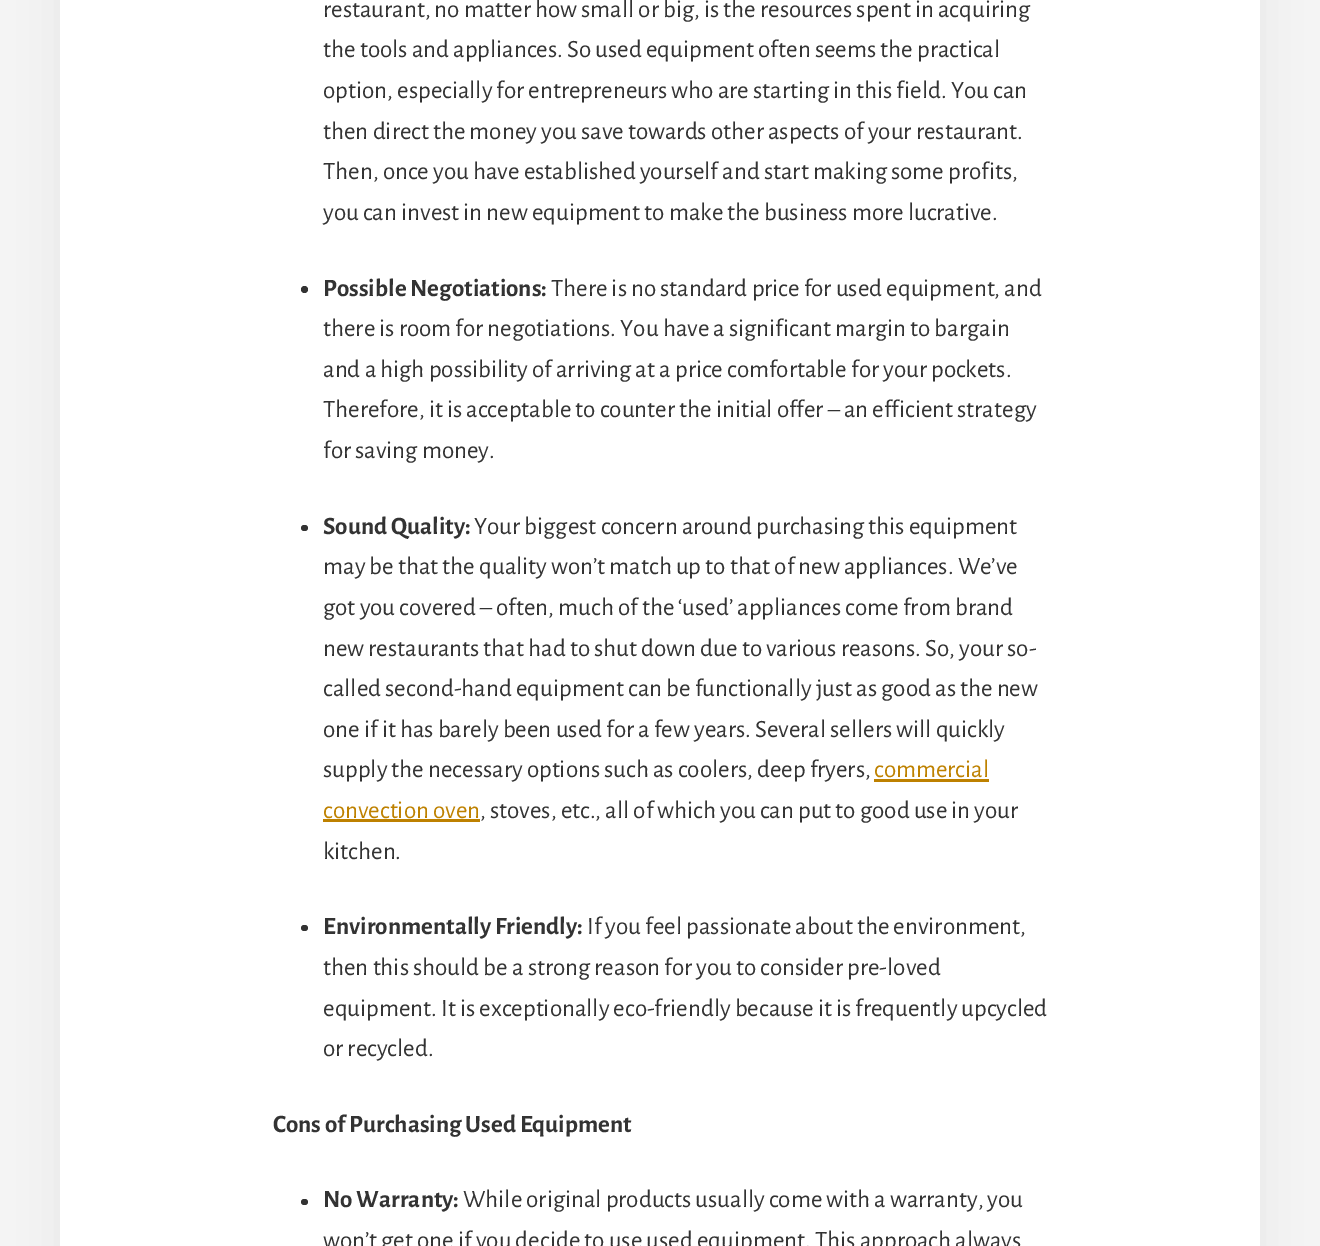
%!PS-Adobe-3.0
%%BoundingBox: 0 0 1320 1246
%%LanguageLevel: 3
%%Pages: 1
%%EndComments
%%BeginProlog
/setink { 3 { 255 div 3 1 roll } repeat setrgbcolor } def
/usefont { [ exch dup neg 0 0 3 -1 roll 0 0 ] selectfont } def
/drawtext { setink usefont moveto show } def
/fillbox { setink rectfill } def
/setalpha { dup .setfillconstantalpha .setstrokeconstantalpha } def
/disc { newpath 0 360 arc closepath } def
/rrect { 5 dict begin { /r /h /w /y /x } { exch def } forall
  x r add y moveto x w add y 2 copy h add r arct x w add y h add x 1 index r arct
  x y h add x y r arct x y 2 copy exch w add exch r arct closepath end } def
/softshadow { 12 dict begin { /a /b /q /h /w /y /x } { exch def } forall gsave /was 0 def
  9 -2 -9 { dup b mul 4 div /e exch def 1 sub .425 mul 2.718 exch exp 1 add a .99 .min exch div /now exch def
    1 1 now sub 1 was sub div sub setalpha /was now def
    w h .min e 2 mul add 0 gt { x e sub y e sub w e 2 mul add h e 2 mul add
      q e add b .6 mul add w h .min 2 div e add .min 0 .max rrect fill } if } for grestore end } def
%%EndProlog
%%BeginSetup
<< /PageSize [1320 1246] /PageUsesTransparency true >> setpagedevice
%%EndSetup
%%Page: 1 1
0 .pushpdf14devicefilter
0 1246 translate 1 -1 scale
4 setmiterlimit
0 0 1320 1246 244 244 244 fillbox
0 0 0 setink
60 -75 1200 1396 0 25 0.05 softshadow
60 0 1200 1246 255 255 255 fillbox
(restaurant, no matter how small or big, is the resources spent in acquiring) 323 17 /AlegreyaSans-Regular 25 51 51 51 drawtext
(the tools and appliances. So used equipment often seems the practical) 323 57 /AlegreyaSans-Regular 25 51 51 51 drawtext
(option, especially for entrepreneurs who are starting in this field. You can) 323 98 /AlegreyaSans-Regular 25 51 51 51 drawtext
(then direct the money you save towards other aspects of your restaurant.) 323 139 /AlegreyaSans-Regular 25 51 51 51 drawtext
(Then, once you have established yourself and start making some profits,) 323 179 /AlegreyaSans-Regular 25 51 51 51 drawtext
(you can invest in new equipment to make the business more lucrative.) 323 220 /AlegreyaSans-Regular 25 51 51 51 drawtext
304.5 289.5 3.5 disc fill
(Possible Negotiations:) 323 296 /AlegreyaSans-Bold 25 51 51 51 drawtext
(There is no standard price for used equipment, and) 551 296 /AlegreyaSans-Regular 25 51 51 51 drawtext
(there is room for negotiations. You have a significant margin to bargain) 323 336 /AlegreyaSans-Regular 25 51 51 51 drawtext
(and a high possibility of arriving at a price comfortable for your pockets.) 323 377 /AlegreyaSans-Regular 25 51 51 51 drawtext
(Therefore, it is acceptable to counter the initial offer – an efficient strategy) 323 417 /AlegreyaSans-Regular 25 51 51 51 drawtext
(for saving money.) 323 458 /AlegreyaSans-Regular 25 51 51 51 drawtext
301 525 7 6 3 rrect fill
(Sound Quality:) 323 534 /AlegreyaSans-Bold 25 51 51 51 drawtext
(Your biggest concern around purchasing this equipment) 474 534 /AlegreyaSans-Regular 25 51 51 51 drawtext
(may be that the quality won’t match up to that of new appliances. We’ve) 323 574 /AlegreyaSans-Regular 25 51 51 51 drawtext
(got you covered – often, much of the ‘used’ appliances come from brand) 323 615 /AlegreyaSans-Regular 25 51 51 51 drawtext
(new restaurants that had to shut down due to various reasons. So, your so-) 323 656 /AlegreyaSans-Regular 25 51 51 51 drawtext
(called second-hand equipment can be functionally just as good as the new) 323 696 /AlegreyaSans-Regular 25 51 51 51 drawtext
(one if it has barely been used for a few years. Several sellers will quickly) 323 737 /AlegreyaSans-Regular 25 51 51 51 drawtext
(supply the necessary options such as coolers, deep fryers,) 323 777 /AlegreyaSans-Regular 25 51 51 51 drawtext
(commercial) 874 777 /AlegreyaSans-Regular 25 190 129 0 drawtext
874 779 115 3 190 129 0 fillbox
(convection oven) 323 818 /AlegreyaSans-Regular 25 190 129 0 drawtext
323 819 157 3 190 129 0 fillbox
(, stoves, etc., all of which you can put to good use in your) 480 818 /AlegreyaSans-Regular 25 51 51 51 drawtext
(kitchen.) 323 859 /AlegreyaSans-Regular 25 51 51 51 drawtext
301 925 7 6 3 rrect fill
(Environmentally Friendly:) 323 934 /AlegreyaSans-Bold 25 51 51 51 drawtext
(If you feel passionate about the environment,) 587 934 /AlegreyaSans-Regular 25 51 51 51 drawtext
(then this should be a strong reason for you to consider pre-loved) 323 975 /AlegreyaSans-Regular 25 51 51 51 drawtext
(equipment. It is exceptionally eco-friendly because it is frequently upcycled) 323 1016 /AlegreyaSans-Regular 25 51 51 51 drawtext
(or recycled.) 323 1056 /AlegreyaSans-Regular 25 51 51 51 drawtext
(Cons of Purchasing Used Equipment) 273 1132 /AlegreyaSans-Bold 25 51 51 51 drawtext
301 1199 7 6 3 rrect fill
(No Warranty:) 323 1207 /AlegreyaSans-Bold 25 51 51 51 drawtext
(While original products usually come with a warranty, you) 463 1207 /AlegreyaSans-Regular 25 51 51 51 drawtext
(won’t get one if you decide to use used equipment. This approach always) 323 1248 /AlegreyaSans-Regular 25 51 51 51 drawtext
.poppdf14devicefilter showpage
%%EOF
